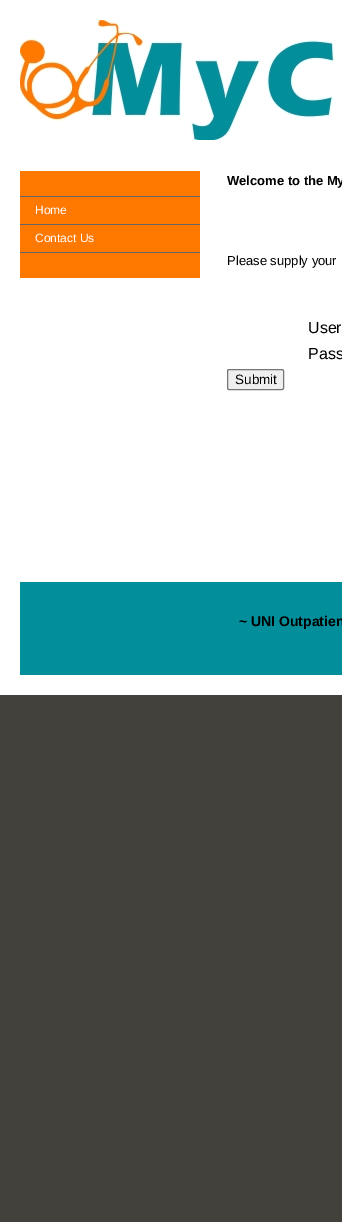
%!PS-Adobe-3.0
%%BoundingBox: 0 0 342 1222
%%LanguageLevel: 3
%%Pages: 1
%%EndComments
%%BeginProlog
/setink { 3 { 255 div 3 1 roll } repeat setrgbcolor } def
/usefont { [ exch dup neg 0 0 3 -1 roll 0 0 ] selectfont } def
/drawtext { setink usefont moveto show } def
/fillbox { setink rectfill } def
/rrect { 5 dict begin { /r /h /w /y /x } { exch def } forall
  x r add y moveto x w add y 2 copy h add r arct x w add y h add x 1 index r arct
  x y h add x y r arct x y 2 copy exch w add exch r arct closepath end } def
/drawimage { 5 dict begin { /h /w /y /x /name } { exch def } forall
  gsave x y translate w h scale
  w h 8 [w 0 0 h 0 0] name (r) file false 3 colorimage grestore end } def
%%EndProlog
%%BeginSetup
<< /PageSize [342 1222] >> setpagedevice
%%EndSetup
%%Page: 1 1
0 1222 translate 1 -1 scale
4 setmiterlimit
0 0 342 1222 66 65 60 fillbox
0 0 342 695 255 255 255 fillbox
(assets/img1.rgb) 20 20 315 120 drawimage
20 171 180 107 255 120 0 fillbox
20 196 180 1 102 102 102 fillbox
20 224 180 1 102 102 102 fillbox
(Home) 35 214 /LiberationSans-Regular 12 255 255 255 drawtext
20 252 180 1 102 102 102 fillbox
(Contact Us) 35 242 /LiberationSans-Regular 12 255 255 255 drawtext
(Welcome to the My) 227 185 /LiberationSans-Bold 13 0 0 0 drawtext
(Please supply your) 227 265 /LiberationSans-Regular 13 0 0 0 drawtext
(User) 308 333 /LiberationSans-Regular 16 0 0 0 drawtext
(Pass) 308 359 /LiberationSans-Regular 16 0 0 0 drawtext
239 239 239 setink
227.5 369.5 56 20 1.5 rrect gsave fill grestore
118 118 118 setink
stroke
(Submit) 235 384 /LiberationSans-Regular 13.5 0 0 0 drawtext
20 582 322 93 2 142 155 fillbox
(~ UNI Outpatien) 239 626 /LiberationSans-Bold 14 0 0 0 drawtext
showpage
%%EOF
